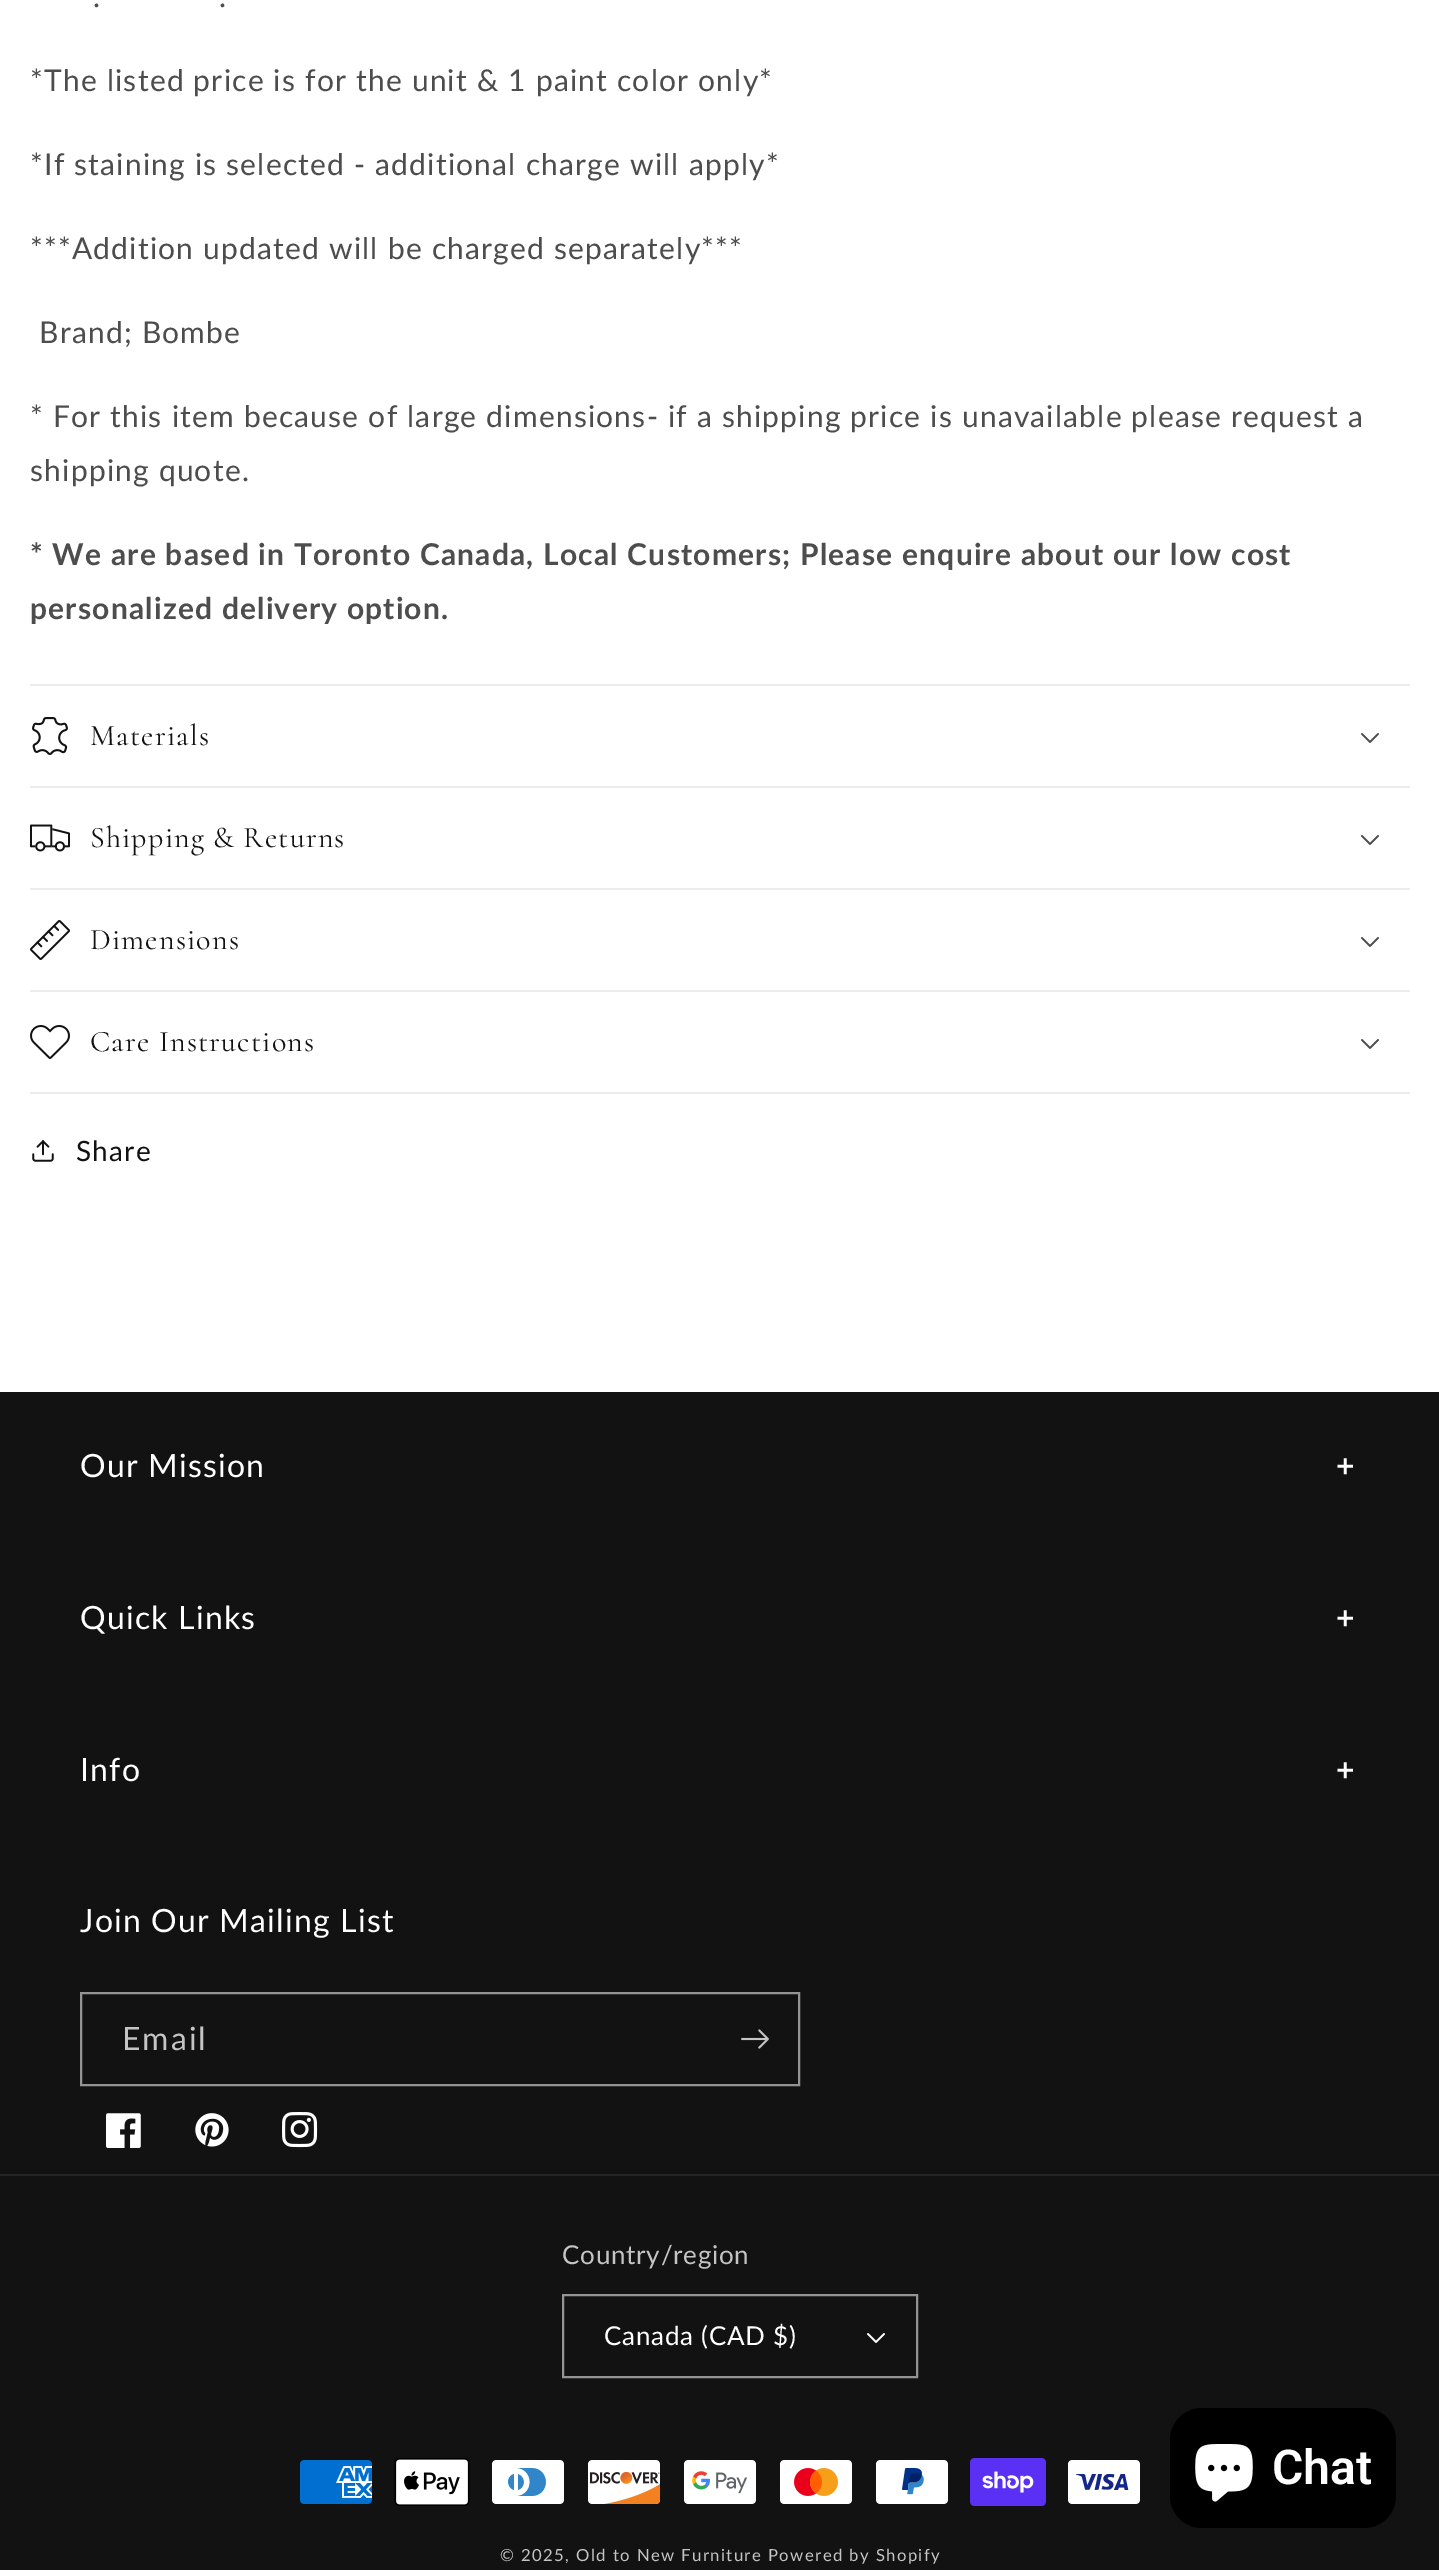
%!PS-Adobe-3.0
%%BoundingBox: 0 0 1439 2570
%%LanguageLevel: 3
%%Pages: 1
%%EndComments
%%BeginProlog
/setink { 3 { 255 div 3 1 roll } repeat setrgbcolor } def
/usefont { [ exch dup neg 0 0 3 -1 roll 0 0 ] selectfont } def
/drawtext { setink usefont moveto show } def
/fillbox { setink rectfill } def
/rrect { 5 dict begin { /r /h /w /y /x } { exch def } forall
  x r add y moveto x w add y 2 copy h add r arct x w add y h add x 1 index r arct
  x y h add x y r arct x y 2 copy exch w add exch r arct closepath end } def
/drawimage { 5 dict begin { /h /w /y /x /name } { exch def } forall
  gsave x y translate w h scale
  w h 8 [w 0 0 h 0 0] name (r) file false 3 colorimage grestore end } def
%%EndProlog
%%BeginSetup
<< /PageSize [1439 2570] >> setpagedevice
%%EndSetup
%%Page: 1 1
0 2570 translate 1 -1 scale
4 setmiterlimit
0 0 1439 2570 255 255 255 fillbox
/Lato-Regular 30 usefont
77 77 77 setink
93 7 moveto 1.2 0 (.) ashow
219 7 moveto 1.2 0 (.) ashow
30 91 moveto 1.2 0 (*The listed price is for the unit & 1 paint color only*) ashow
30 175 moveto 1.2 0 (*If staining is selected - additional charge will apply*) ashow
30 259 moveto 1.2 0 (***Addition updated will be charged separately***) ashow
39 343 moveto 1.2 0 (Brand; Bombe) ashow
30 427 moveto 1.2 0 (* For this item because of large dimensions- if a shipping price is unavailable please request a) ashow
30 481 moveto 1.2 0 (shipping quote.) ashow
/Lato-Bold 30 usefont
30 565 moveto 1.2 0 (* We are based in Toronto Canada, Local Customers; Please enquire about our low cost) ashow
30 619 moveto 1.2 0 (personalized delivery option.) ashow
30 684 1380 2 236 236 236 fillbox
30 786 1380 2 236 236 236 fillbox
(assets/img1.rgb) 32 717 36 38 drawimage
/Cormorant-Regular 30 usefont
18 18 18 setink
90 745 moveto 1.2 0 (Materials) ashow
(assets/img2.rgb) 1361 733 18 10 drawimage
30 888 1380 2 236 236 236 fillbox
(assets/img3.rgb) 30 824 40 28 drawimage
18 18 18 setink
90 847 moveto 1.2 0 (Shipping & Returns) ashow
(assets/img2.rgb) 1361 835 18 10 drawimage
30 990 1380 2 236 236 236 fillbox
(assets/img4.rgb) 30 920 40 40 drawimage
18 18 18 setink
90 949 moveto 1.2 0 (Dimensions) ashow
(assets/img2.rgb) 1361 937 18 10 drawimage
30 1092 1380 2 236 236 236 fillbox
(assets/img5.rgb) 30 1025 40 34 drawimage
18 18 18 setink
90 1051 moveto 1.2 0 (Care Instructions) ashow
(assets/img2.rgb) 1361 1039 18 10 drawimage
(assets/img6.rgb) 32 1140 22 22 drawimage
/Lato-Regular 28 usefont
76 1161 moveto 1.2 0 (Share) ashow
0 1392 1439 1178 18 18 18 fillbox
/Lato-Regular 32 usefont
255 255 255 setink
80 1477 moveto 1.2 0 (Our Mission) ashow
/Lato-Bold 32 usefont
1336 1477 moveto 1.2 0 (+) ashow
/Lato-Regular 32 usefont
80 1629 moveto 1.2 0 (Quick Links) ashow
/Lato-Bold 32 usefont
1336 1629 moveto 1.2 0 (+) ashow
/Lato-Regular 32 usefont
80 1781 moveto 1.2 0 (Info) ashow
/Lato-Bold 32 usefont
1336 1781 moveto 1.2 0 (+) ashow
/Lato-Regular 32 usefont
80 1932 moveto 1.2 0 (Join Our Mailing List) ashow
148 148 148 setink
2 setlinewidth
81 1993 718 92 rectstroke
196 196 196 setink
122 2050 moveto 2 0 (Email) ashow
(assets/img7.rgb) 741 2029 28 20 drawimage
(assets/img8.rgb) 106 2113 35 35 drawimage
(assets/img9.rgb) 195 2113 34 34 drawimage
(assets/img10.rgb) 282 2112 36 36 drawimage
0 2174 1439 2 37 37 37 fillbox
/Lato-Regular 26 usefont
196 196 196 setink
562 2264 moveto 0.75 0 (Country/region) ashow
(assets/img11.rgb) 867 2333 18 10 drawimage
148 148 148 setink
563 2295 354 82 rectstroke
255 255 255 setink
604 2345 moveto 0.75 0 (Canada \(CAD $\)) ashow
(assets/img12.rgb) 300 2460 72 44 drawimage
(assets/img13.rgb) 394 2458 76 48 drawimage
(assets/img14.rgb) 492 2460 72 44 drawimage
(assets/img15.rgb) 588 2460 73 44 drawimage
(assets/img16.rgb) 684 2460 72 44 drawimage
(assets/img17.rgb) 780 2460 72 44 drawimage
(assets/img18.rgb) 876 2460 72 44 drawimage
(assets/img19.rgb) 970 2458 76 48 drawimage
(assets/img20.rgb) 1068 2460 72 44 drawimage
/Lato-Regular 16.7 usefont
196 196 196 setink
500 2561 moveto 1.4 0 (© 2025, Old to New Furniture) ashow
768 2561 moveto 1.4 0 (Powered by Shopify) ashow
0 0 0 setink
1170 2408 226 120 32 rrect fill
(assets/img21.rgb) 1195 2444 58 58 drawimage
(Chat) 1272 2484 /Roboto-SemiBold 48 255 255 255 drawtext
showpage
%%EOF
